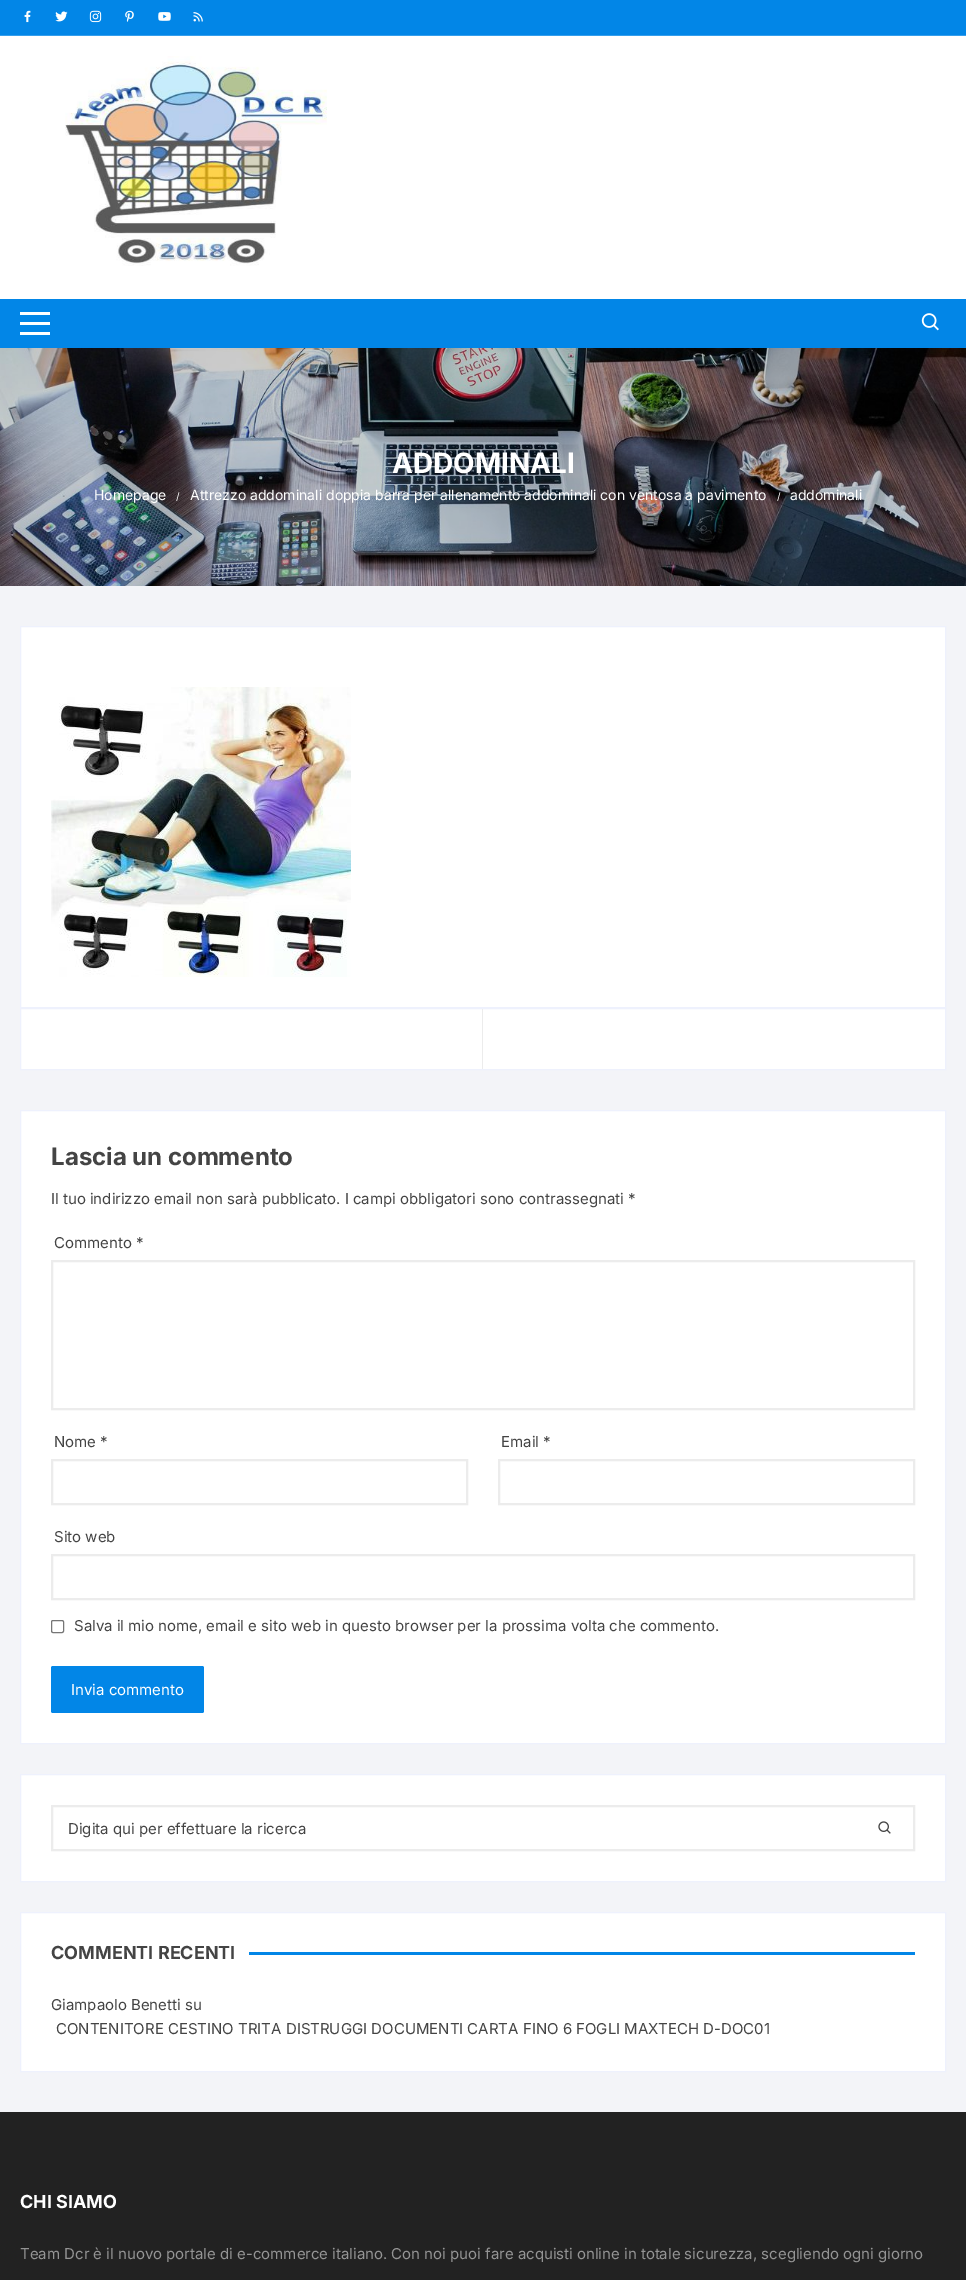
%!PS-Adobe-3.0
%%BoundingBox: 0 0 966 2280
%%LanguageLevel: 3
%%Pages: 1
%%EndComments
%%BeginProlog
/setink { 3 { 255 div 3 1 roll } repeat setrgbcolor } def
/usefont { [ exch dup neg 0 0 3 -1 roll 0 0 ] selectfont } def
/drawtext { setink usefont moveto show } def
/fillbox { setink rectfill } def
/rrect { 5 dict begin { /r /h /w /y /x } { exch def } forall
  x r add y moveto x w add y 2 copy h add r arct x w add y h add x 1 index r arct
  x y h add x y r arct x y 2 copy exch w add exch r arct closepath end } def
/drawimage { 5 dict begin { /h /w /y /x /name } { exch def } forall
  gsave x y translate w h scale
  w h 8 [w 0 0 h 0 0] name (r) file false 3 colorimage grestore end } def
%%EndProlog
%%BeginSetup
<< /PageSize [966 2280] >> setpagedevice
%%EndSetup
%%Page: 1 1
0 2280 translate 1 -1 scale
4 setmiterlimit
0 0 966 2280 243 244 248 fillbox
0 36 966 263 255 255 255 fillbox
0 0 966 35 2 134 231 fillbox
0 35 966 1 53 158 236 fillbox
(assets/img1.rgb) 24 10 7 13 drawimage
(assets/img2.rgb) 55 11 13 11 drawimage
(assets/img3.rgb) 89 10 13 13 drawimage
(assets/img4.rgb) 125 10 9 12 drawimage
(assets/img5.rgb) 158 12 13 9 drawimage
(assets/img6.rgb) 193 12 10 10 drawimage
(assets/img7.rgb) 65 56 262 210 drawimage
0 299 966 49 2 134 231 fillbox
20 312 30 3 255 255 255 fillbox
20 322 30 3 255 255 255 fillbox
20 332 30 3 255 255 255 fillbox
(assets/img8.rgb) 921 313 18 18 drawimage
(assets/img9.rgb) 0 348 966 238 drawimage
(ADDOMINALI) 392 473 /Inter-Bold 28 255 255 255 drawtext
(Homepage) 94 500 /Inter-Regular 14 255 255 255 drawtext
(/) 176 500 /Inter-Regular 10 255 255 255 drawtext
(Attrezzo addominali doppia barra per allenamento addominali con ventosa a pavimento) 190 500 /Inter-Regular 14 255 255 255 drawtext
(/) 777 500 /Inter-Regular 10 255 255 255 drawtext
(addominali) 790 500 /Inter-Regular 14 255 255 255 drawtext
20.5 626.5 moveto 945.5 626.5 lineto 945.5 1007.5 lineto 20.5 1007.5 lineto closepath gsave fill grestore
238 241 253 setink
stroke
(assets/img10.rgb) 51 687 300 290 drawimage
255 255 255 setink
20.5 1008.5 moveto 945.5 1008.5 lineto 945.5 1069.5 lineto 20.5 1069.5 lineto closepath gsave fill grestore
238 241 253 setink
stroke
482 1009 1 60 236 236 236 fillbox
255 255 255 setink
20.5 1110.5 moveto 945.5 1110.5 lineto 945.5 1743.5 lineto 20.5 1743.5 lineto closepath gsave fill grestore
238 241 253 setink
stroke
(Lascia un commento) 51 1165 /Inter-Bold 24 68 68 68 drawtext
(Il tuo indirizzo email non sarà pubblicato. I campi obbligatori sono contrassegnati *) 51 1204 /Inter-Regular 15 68 68 68 drawtext
(Commento *) 54 1248 /Inter-Regular 15 68 68 68 drawtext
236 236 236 setink
2 setlinewidth
52 1261 862 148 rectstroke
(Nome *) 54 1447 /Inter-Regular 15 68 68 68 drawtext
236 236 236 setink
52 1460 415 44 rectstroke
(Email *) 501 1447 /Inter-Regular 15 68 68 68 drawtext
236 236 236 setink
499 1460 415 44 rectstroke
(Sito web) 54 1542 /Inter-Regular 15 68 68 68 drawtext
236 236 236 setink
52 1555 862 44 rectstroke
118 118 118 setink
1 setlinewidth
51.5 1620.5 12 12 1.5 rrect stroke
(Salva il mio nome, email e sito web in questo browser per la prossima volta che commento.) 74 1631 /Inter-Regular 15 68 68 68 drawtext
2 134 231 setink
51 1666 153 47 2 rrect fill
(Invia commento) 71 1695 /Inter-Regular 15 255 255 255 drawtext
20.5 1774.5 moveto 945.5 1774.5 lineto 945.5 1881.5 lineto 20.5 1881.5 lineto closepath gsave fill grestore
238 241 253 setink
stroke
236 236 236 setink
2 setlinewidth
52 1806 862 44 rectstroke
(Digita qui per effettuare la ricerca) 68 1834 /Inter-Regular 15 68 68 68 drawtext
(assets/img11.rgb) 878 1821 13 13 drawimage
255 255 255 setink
20.5 1912.5 moveto 945.5 1912.5 lineto 945.5 2071.5 lineto 20.5 2071.5 lineto closepath gsave fill grestore
238 241 253 setink
1 setlinewidth
stroke
(COMMENTI RECENTI) 51 1959 /Inter-Bold 18 68 68 68 drawtext
249 1952 666 3 2 134 231 fillbox
(Giampaolo Benetti) 51 2010 /Inter-Regular 15 68 68 68 drawtext
(su) 185 2010 /Inter-Regular 15 68 68 68 drawtext
(CONTENITORE CESTINO TRITA DISTRUGGI DOCUMENTI CARTA FINO 6 FOGLI MAXTECH D-DOC01) 56 2034 /Inter-Regular 15 68 68 68 drawtext
0 2112 966 168 34 34 34 fillbox
(CHI SIAMO) 20 2208 /Inter-Bold 18 255 255 255 drawtext
(Team Dcr è il nuovo portale di e-commerce italiano. Con noi puoi fare acquisti online in totale sicurezza, scegliendo ogni giorno) 20 2259 /Inter-Regular 15 148 148 148 drawtext
showpage
%%EOF
